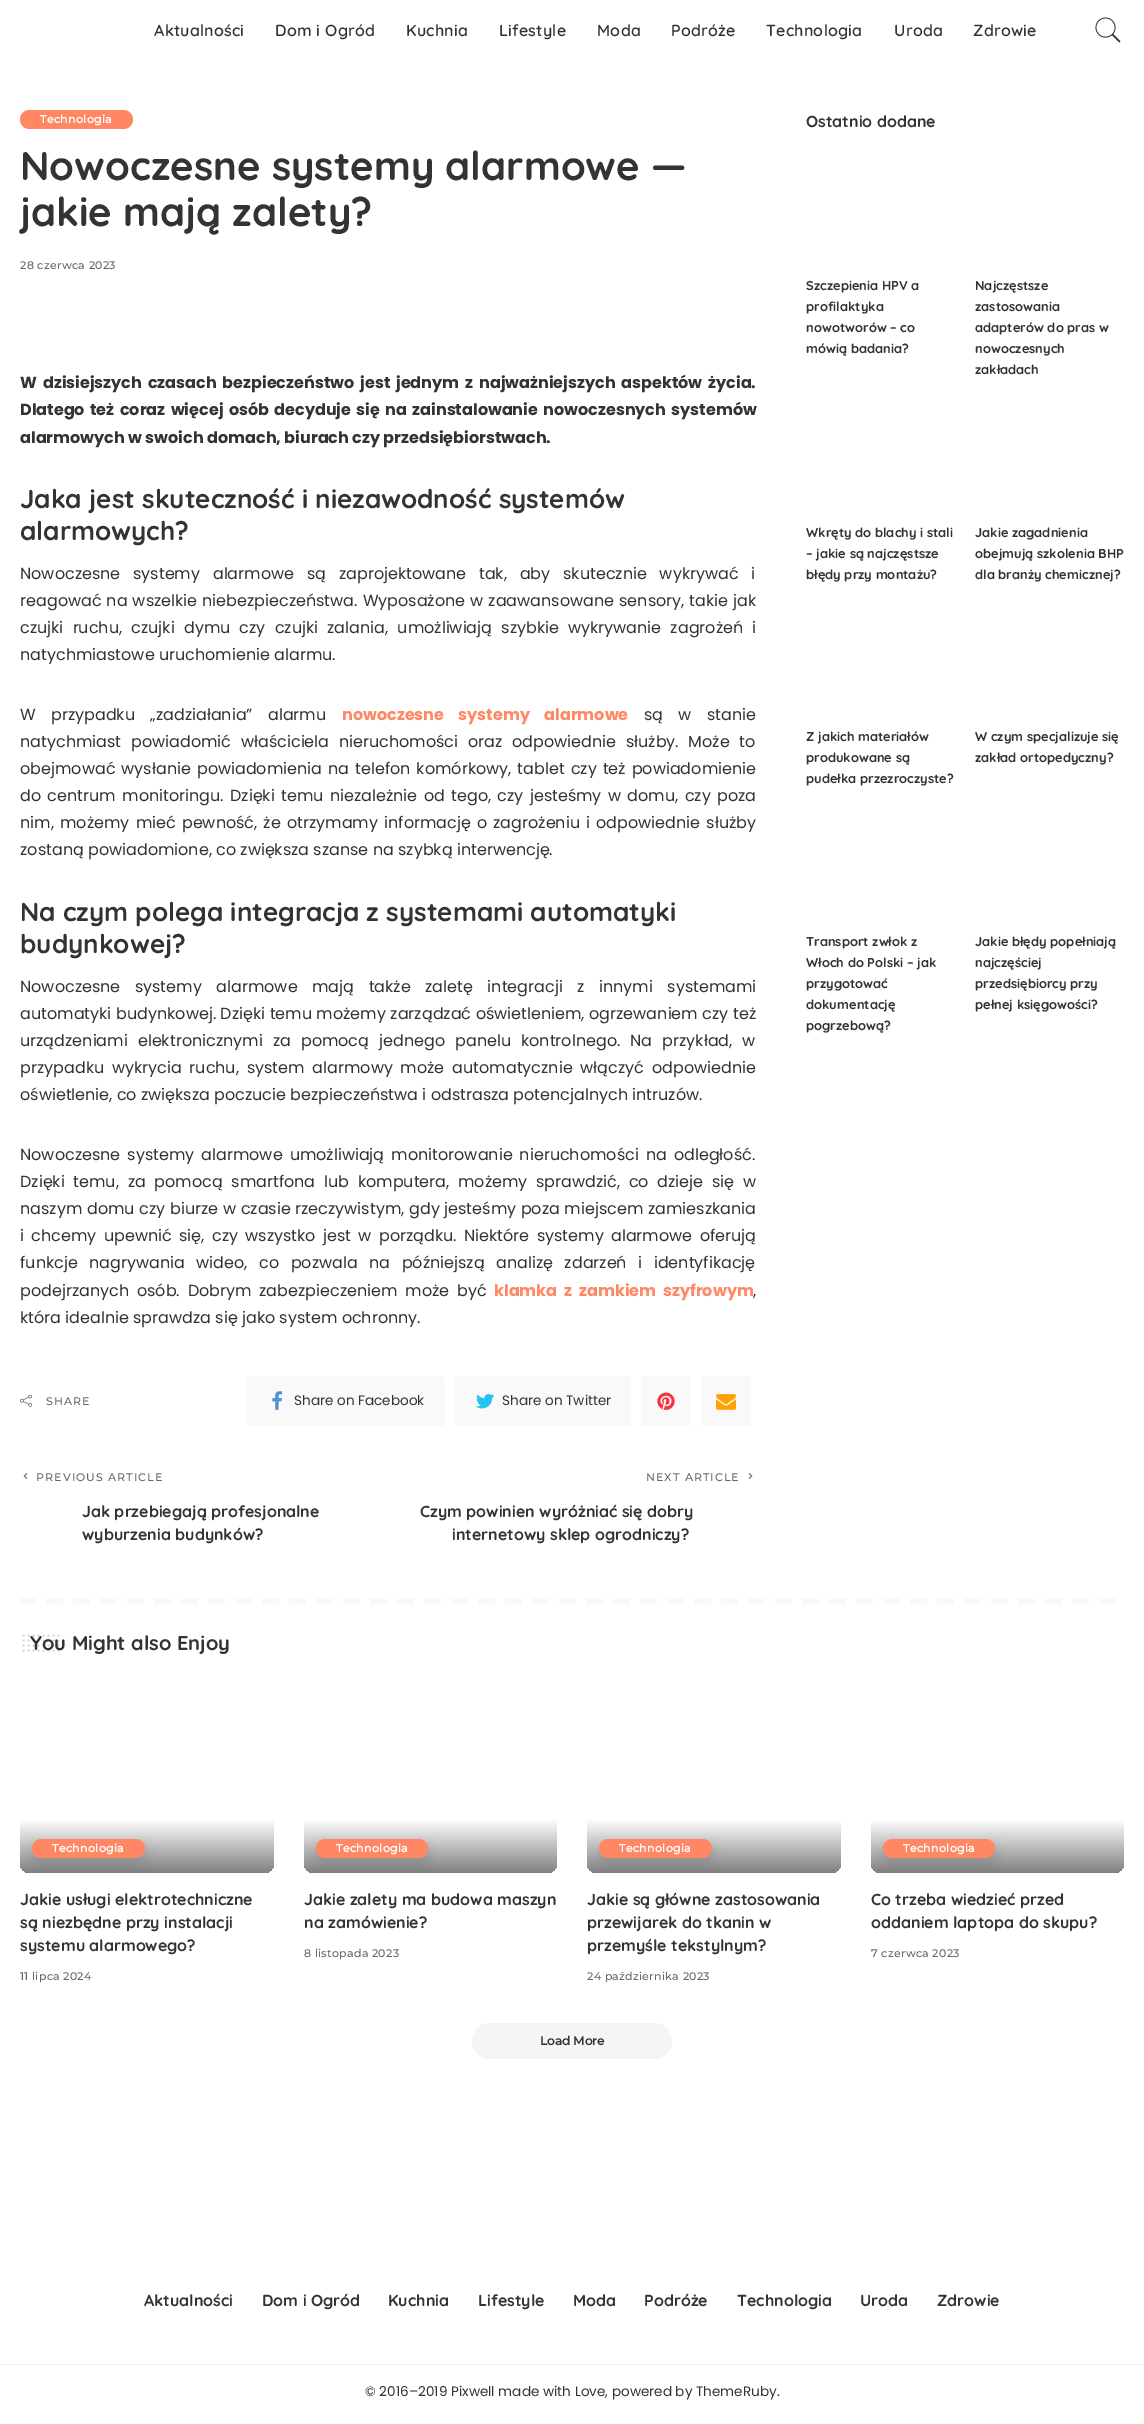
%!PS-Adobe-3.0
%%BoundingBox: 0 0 1144 2424
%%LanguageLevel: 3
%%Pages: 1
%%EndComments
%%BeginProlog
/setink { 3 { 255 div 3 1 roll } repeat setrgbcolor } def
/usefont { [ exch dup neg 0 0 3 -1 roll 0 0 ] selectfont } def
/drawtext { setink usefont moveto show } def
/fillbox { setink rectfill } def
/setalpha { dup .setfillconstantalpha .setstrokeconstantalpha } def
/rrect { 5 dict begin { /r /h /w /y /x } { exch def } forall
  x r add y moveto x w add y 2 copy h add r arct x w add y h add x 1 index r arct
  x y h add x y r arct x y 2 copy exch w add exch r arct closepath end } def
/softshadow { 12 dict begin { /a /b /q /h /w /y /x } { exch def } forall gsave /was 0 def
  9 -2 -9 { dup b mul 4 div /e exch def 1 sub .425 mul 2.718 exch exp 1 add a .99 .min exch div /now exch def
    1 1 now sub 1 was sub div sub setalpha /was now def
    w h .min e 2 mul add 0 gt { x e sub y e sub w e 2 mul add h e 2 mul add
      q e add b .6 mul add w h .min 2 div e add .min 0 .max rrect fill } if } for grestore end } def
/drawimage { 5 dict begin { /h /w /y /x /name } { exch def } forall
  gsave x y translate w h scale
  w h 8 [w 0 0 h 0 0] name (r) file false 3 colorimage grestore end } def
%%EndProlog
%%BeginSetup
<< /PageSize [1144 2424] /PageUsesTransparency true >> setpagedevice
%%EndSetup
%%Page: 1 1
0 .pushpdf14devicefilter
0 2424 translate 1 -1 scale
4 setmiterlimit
0 0 1144 2424 255 255 255 fillbox
/Quicksand-SemiBold 16 usefont
51 51 51 setink
154 36 moveto 0.25 0 (Aktualności) ashow
275 36 moveto 0.25 0 (Dom i Ogród) ashow
406 36 moveto 0.25 0 (Kuchnia) ashow
499 36 moveto 0.25 0 (Lifestyle) ashow
597 36 moveto 0.25 0 (Moda) ashow
671 36 moveto 0.25 0 (Podróże) ashow
766 36 moveto 0.25 0 (Technologia) ashow
894 36 moveto 0.25 0 (Uroda) ashow
973 36 moveto 0.25 0 (Zdrowie) ashow
(assets/img1.rgb) 1095 17 26 26 drawimage
255 135 99 setink
20 110 113 19 9.5 rrect fill
/Montserrat-Bold 11 usefont
255 255 255 setink
40 123 moveto 0.3 0 (Technologia) ashow
(Nowoczesne systemy alarmowe —) 20 180 /Quicksand-Bold 40 51 51 51 drawtext
(jakie mają zalety?) 20 226 /Quicksand-Bold 40 51 51 51 drawtext
/Montserrat-Thin 11 usefont
102 102 102 setink
20 269 moveto 0.3 0 (28 czerwca 2023) ashow
/Poppins-Bold 16 usefont
51 51 51 setink
20 388 moveto 2.5 0 32 (W dzisiejszych czasach bezpieczeństwo jest jednym z najważniejszych aspektów życia.) widthshow
20 415 moveto 2 0 32 (Dlatego też coraz więcej osób decyduje się na zainstalowanie nowoczesnych systemów) widthshow
(alarmowych w swoich domach, biurach czy przedsiębiorstwach.) 20 443 /Poppins-Bold 16 51 51 51 drawtext
(Jaka jest skuteczność i niezawodność systemów) 20 508 /Quicksand-Bold 26 51 51 51 drawtext
(alarmowych?) 20 540 /Quicksand-Bold 26 51 51 51 drawtext
/Poppins-Regular 16 usefont
20 579 moveto 8.5 0 32 (Nowoczesne systemy alarmowe są zaprojektowane tak, aby skutecznie wykrywać i) widthshow
20 606 moveto 0.75 0 32 (reagować na wszelkie niebezpieczeństwa. Wyposażone w zaawansowane sensory, takie jak) widthshow
20 633 moveto 4.9 0 32 (czujki ruchu, czujki dymu czy czujki zalania, umożliwiają szybkie wykrywanie zagrożeń i) widthshow
(natychmiastowe uruchomienie alarmu.) 20 660 /Poppins-Regular 16 51 51 51 drawtext
20 720 moveto 11 0 32 (W przypadku „zadziałania” alarmu) widthshow
/Poppins-Bold 16 usefont
255 135 99 setink
342 720 moveto 11 0 32 (nowoczesne systemy alarmowe) widthshow
/Poppins-Regular 16 usefont
51 51 51 setink
644 720 moveto 11 0 32 (są w stanie) widthshow
20 747 moveto 5.5 0 32 (natychmiast powiadomić właściciela nieruchomości oraz odpowiednie służby. Może to) widthshow
20 774 moveto 1.75 0 32 (obejmować wysłanie powiadomienia na telefon komórkowy, tablet czy też powiadomienie) widthshow
20 801 moveto 2.1 0 32 (do centrum monitoringu. Dzięki temu niezależnie od tego, czy jesteśmy w domu, czy poza) widthshow
20 828 moveto 1.9 0 32 (nim, możemy mieć pewność, że otrzymamy informację o zagrożeniu i odpowiednie służby) widthshow
(zostaną powiadomione, co zwiększa szanse na szybką interwencję.) 20 855 /Poppins-Regular 16 51 51 51 drawtext
(Na czym polega integracja z systemami automatyki) 20 921 /Quicksand-Bold 26 51 51 51 drawtext
(budynkowej?) 20 953 /Quicksand-Bold 26 51 51 51 drawtext
/Poppins-Regular 16 usefont
20 992 moveto 10.25 0 32 (Nowoczesne systemy alarmowe mają także zaletę integracji z innymi systemami) widthshow
20 1019 moveto 0.25 0 32 (automatyki budynkowej. Dzięki temu możemy zarządzać oświetleniem, ogrzewaniem czy też) widthshow
20 1046 moveto 5.75 0 32 (urządzeniami elektronicznymi za pomocą jednego panelu kontrolnego. Na przykład, w) widthshow
20 1073 moveto 3.5 0 32 (przypadku wykrycia ruchu, system alarmowy może automatycznie włączyć odpowiednie) widthshow
(oświetlenie, co zwiększa poczucie bezpieczeństwa i odstrasza potencjalnych intruzów.) 20 1100 /Poppins-Regular 16 51 51 51 drawtext
20 1160 moveto 2.75 0 32 (Nowoczesne systemy alarmowe umożliwiają monitorowanie nieruchomości na odległość.) widthshow
20 1187 moveto 4.4 0 32 (Dzięki temu, za pomocą smartfona lub komputera, możemy sprawdzić, co dzieje się w) widthshow
20 1214 moveto 0.4 0 32 (naszym domu czy biurze w czasie rzeczywistym, gdy jesteśmy poza miejscem zamieszkania) widthshow
20 1241 moveto 3.1 0 32 (i chcemy upewnić się, czy wszystko jest w porządku. Niektóre systemy alarmowe oferują) widthshow
20 1268 moveto 7.25 0 32 (funkcje nagrywania wideo, co pozwala na późniejszą analizę zdarzeń i identyfikację) widthshow
20 1296 moveto 3.5 0 32 (podejrzanych osób. Dobrym zabezpieczeniem może być) widthshow
/Poppins-Bold 16 usefont
255 135 99 setink
494 1296 moveto 3.5 0 32 (klamka z zamkiem szyfrowym) widthshow
(,) 753 1296 /Poppins-Regular 16 51 51 51 drawtext
(która idealnie sprawdza się jako system ochronny.) 20 1323 /Poppins-Regular 16 51 51 51 drawtext
(assets/img2.rgb) 20 1394 12 13 drawimage
/Montserrat-Thin 11 usefont
102 102 102 setink
46 1405 moveto 1.1 0 (SHARE) ashow
249 249 249 setink
247 1376 198 50 4 rrect fill
(assets/img3.rgb) 272 1391 10 19 drawimage
(Share on Facebook) 294 1405 /Poppins-Regular 13.6 51 51 51 drawtext
249 249 249 setink
455 1376 176 50 4 rrect fill
(assets/img4.rgb) 476 1394 18 15 drawimage
(Share on Twitter) 502 1405 /Poppins-Regular 13.6 51 51 51 drawtext
249 249 249 setink
641 1376 50 50 4 rrect fill
(assets/img5.rgb) 657 1392 18 18 drawimage
701 1376 50 50 4 rrect fill
(assets/img6.rgb) 716 1394 20 16 drawimage
(assets/img7.rgb) 23 1473 5 7 drawimage
/Montserrat-Thin 11 usefont
102 102 102 setink
36 1481 moveto 1.1 0 (PREVIOUS ARTICLE) ashow
(Jak przebiegają profesjonalne) 82 1517 /Quicksand-Bold 16 51 51 51 drawtext
(wyburzenia budynków?) 82 1540 /Quicksand-Bold 16 51 51 51 drawtext
/Montserrat-Thin 11 usefont
102 102 102 setink
646 1481 moveto 1.1 0 (NEXT ARTICLE) ashow
(assets/img8.rgb) 748 1473 5 7 drawimage
(Czym powinien wyróżniać się dobry) 420 1517 /Quicksand-Bold 16 51 51 51 drawtext
(internetowy sklep ogrodniczy?) 452 1540 /Quicksand-Bold 16 51 51 51 drawtext
(Ostatnio dodane) 806 127 /Quicksand-Bold 16 51 51 51 drawtext
(Szczepienia HPV a) 806 290 /Quicksand-Bold 12.9 51 51 51 drawtext
(profilaktyka) 806 311 /Quicksand-Bold 12.9 51 51 51 drawtext
(nowotworów – co) 806 332 /Quicksand-Bold 12.9 51 51 51 drawtext
(mówią badania?) 806 353 /Quicksand-Bold 12.9 51 51 51 drawtext
(Najczęstsze) 975 290 /Quicksand-Bold 12.9 51 51 51 drawtext
(zastosowania) 975 311 /Quicksand-Bold 12.9 51 51 51 drawtext
(adapterów do pras w) 975 332 /Quicksand-Bold 12.9 51 51 51 drawtext
(nowoczesnych) 975 353 /Quicksand-Bold 12.9 51 51 51 drawtext
(zakładach) 975 374 /Quicksand-Bold 12.9 51 51 51 drawtext
(Wkręty do blachy i stali) 806 537 /Quicksand-Bold 12.9 51 51 51 drawtext
(– jakie są najczęstsze) 806 558 /Quicksand-Bold 12.9 51 51 51 drawtext
(błędy przy montażu?) 806 579 /Quicksand-Bold 12.9 51 51 51 drawtext
(Jakie zagadnienia) 975 537 /Quicksand-Bold 12.9 51 51 51 drawtext
(obejmują szkolenia BHP) 975 558 /Quicksand-Bold 12.9 51 51 51 drawtext
(dla branży chemicznej?) 975 579 /Quicksand-Bold 12.9 51 51 51 drawtext
(Z jakich materiałów) 806 741 /Quicksand-Bold 12.9 51 51 51 drawtext
(produkowane są) 806 762 /Quicksand-Bold 12.9 51 51 51 drawtext
(pudełka przezroczyste?) 806 783 /Quicksand-Bold 12.9 51 51 51 drawtext
(W czym specjalizuje się) 975 741 /Quicksand-Bold 12.9 51 51 51 drawtext
(zakład ortopedyczny?) 975 762 /Quicksand-Bold 12.9 51 51 51 drawtext
(Transport zwłok z) 806 946 /Quicksand-Bold 12.9 51 51 51 drawtext
(Włoch do Polski – jak) 806 967 /Quicksand-Bold 12.9 51 51 51 drawtext
(przygotować) 806 988 /Quicksand-Bold 12.9 51 51 51 drawtext
(dokumentację) 806 1009 /Quicksand-Bold 12.9 51 51 51 drawtext
(pogrzebową?) 806 1030 /Quicksand-Bold 12.9 51 51 51 drawtext
(Jakie błędy popełniają) 975 946 /Quicksand-Bold 12.9 51 51 51 drawtext
(najczęściej) 975 967 /Quicksand-Bold 12.9 51 51 51 drawtext
(przedsiębiorcy przy) 975 988 /Quicksand-Bold 12.9 51 51 51 drawtext
(pełnej księgowości?) 975 1009 /Quicksand-Bold 12.9 51 51 51 drawtext
(assets/img9.rgb) 20 1598 1096 7 drawimage
(You Might also Enjoy) 30 1650 /Quicksand-Bold 20 51 51 51 drawtext
214 214 214 setink
2 setlinewidth
1 setlinecap
[0 5] 0 setdash
23.5 1635.5 moveto 58.7 1635.5 lineto stroke
0.2 setalpha
51 51 51 setink
23.5 1640.5 moveto 58.7 1640.5 lineto 23.5 1645.5 moveto 58.7 1645.5 lineto 23.5 1650.5 moveto 58.7 1650.5 lineto stroke
1 setalpha
gsave 20 1819 moveto 274 1819 lineto 274 1863 lineto 274 1868.5 269.5 1873 264 1873 curveto 30 1873 lineto 24.5 1873 20 1868.5 20 1863 curveto closepath clip newpath
<< /ShadingType 2 /ColorSpace /DeviceRGB /Coords [147 1819 147 1873] /Extend [true true] /Function << /FunctionType 2 /Domain [0 1] /C0 [1 1 1] /C1 [0.502 0.502 0.502] /N 1 >> >> shfill grestore
0 0 0 setink
33 1844 113 19 9.5 5 0.1 softshadow
255 135 99 setink
32 1839 113 19 9.5 rrect fill
/Montserrat-Bold 11 usefont
255 255 255 setink
52 1852 moveto 0.3 0 (Technologia) ashow
(Jakie usługi elektrotechniczne) 20 1905 /Quicksand-Bold 16 51 51 51 drawtext
(są niezbędne przy instalacji) 20 1928 /Quicksand-Bold 16 51 51 51 drawtext
(systemu alarmowego?) 20 1951 /Quicksand-Bold 16 51 51 51 drawtext
/Montserrat-Thin 11 usefont
102 102 102 setink
20 1980 moveto 0.3 0 (11 lipca 2024) ashow
gsave 304 1819 moveto 557 1819 lineto 557 1863 lineto 557 1868.5 552.5 1873 547 1873 curveto 314 1873 lineto 308.5 1873 304 1868.5 304 1863 curveto closepath clip newpath
<< /ShadingType 2 /ColorSpace /DeviceRGB /Coords [431 1819 431 1873] /Extend [true true] /Function << /FunctionType 2 /Domain [0 1] /C0 [1 1 1] /C1 [0.502 0.502 0.502] /N 1 >> >> shfill grestore
0 0 0 setink
317 1844 112 19 9.5 5 0.1 softshadow
255 135 99 setink
316 1839 112 19 9.5 rrect fill
/Montserrat-Bold 11 usefont
255 255 255 setink
336 1852 moveto 0.3 0 (Technologia) ashow
(Jakie zalety ma budowa maszyn) 304 1905 /Quicksand-Bold 16 51 51 51 drawtext
(na zamówienie?) 304 1928 /Quicksand-Bold 16 51 51 51 drawtext
/Montserrat-Thin 11 usefont
102 102 102 setink
304 1957 moveto 0.3 0 (8 listopada 2023) ashow
gsave 587 1819 moveto 841 1819 lineto 841 1863 lineto 841 1868.5 836.5 1873 831 1873 curveto 597 1873 lineto 591.5 1873 587 1868.5 587 1863 curveto closepath clip newpath
<< /ShadingType 2 /ColorSpace /DeviceRGB /Coords [714 1819 714 1873] /Extend [true true] /Function << /FunctionType 2 /Domain [0 1] /C0 [1 1 1] /C1 [0.502 0.502 0.502] /N 1 >> >> shfill grestore
0 0 0 setink
600 1844 113 19 9.5 5 0.1 softshadow
255 135 99 setink
599 1839 113 19 9.5 rrect fill
/Montserrat-Bold 11 usefont
255 255 255 setink
619 1852 moveto 0.3 0 (Technologia) ashow
(Jakie są główne zastosowania) 587 1905 /Quicksand-Bold 16 51 51 51 drawtext
(przewijarek do tkanin w) 587 1928 /Quicksand-Bold 16 51 51 51 drawtext
(przemyśle tekstylnym?) 587 1951 /Quicksand-Bold 16 51 51 51 drawtext
/Montserrat-Thin 11 usefont
102 102 102 setink
587 1980 moveto 0.3 0 (24 października 2023) ashow
gsave 871 1819 moveto 1124 1819 lineto 1124 1863 lineto 1124 1868.5 1119.5 1873 1114 1873 curveto 881 1873 lineto 875.5 1873 871 1868.5 871 1863 curveto closepath clip newpath
<< /ShadingType 2 /ColorSpace /DeviceRGB /Coords [998 1819 998 1873] /Extend [true true] /Function << /FunctionType 2 /Domain [0 1] /C0 [1 1 1] /C1 [0.502 0.502 0.502] /N 1 >> >> shfill grestore
0 0 0 setink
884 1844 112 19 9.5 5 0.1 softshadow
255 135 99 setink
883 1839 112 19 9.5 rrect fill
/Montserrat-Bold 11 usefont
255 255 255 setink
903 1852 moveto 0.3 0 (Technologia) ashow
(Co trzeba wiedzieć przed) 871 1905 /Quicksand-Bold 16 51 51 51 drawtext
(oddaniem laptopa do skupu?) 871 1928 /Quicksand-Bold 16 51 51 51 drawtext
/Montserrat-Thin 11 usefont
102 102 102 setink
871 1957 moveto 0.3 0 (7 czerwca 2023) ashow
245 245 245 setink
472 2023 200 36 18 rrect fill
(Load More) 540 2045 /Montserrat-Bold 12 51 51 51 drawtext
(Aktualności) 144 2306 /Quicksand-Bold 16 51 51 51 drawtext
(Dom i Ogród) 262 2306 /Quicksand-Bold 16 51 51 51 drawtext
(Kuchnia) 388 2306 /Quicksand-Bold 16 51 51 51 drawtext
(Lifestyle) 478 2306 /Quicksand-Bold 16 51 51 51 drawtext
(Moda) 573 2306 /Quicksand-Bold 16 51 51 51 drawtext
(Podróże) 644 2306 /Quicksand-Bold 16 51 51 51 drawtext
(Technologia) 737 2306 /Quicksand-Bold 16 51 51 51 drawtext
(Uroda) 860 2306 /Quicksand-Bold 16 51 51 51 drawtext
(Zdrowie) 937 2306 /Quicksand-Bold 16 51 51 51 drawtext
0 2364 1144 1 239 239 239 fillbox
(© 2016–2019 Pixwell made with Love, powered by ThemeRuby.) 365 2396 /Poppins-Regular 13.6 51 51 51 drawtext
.poppdf14devicefilter showpage
%%EOF
